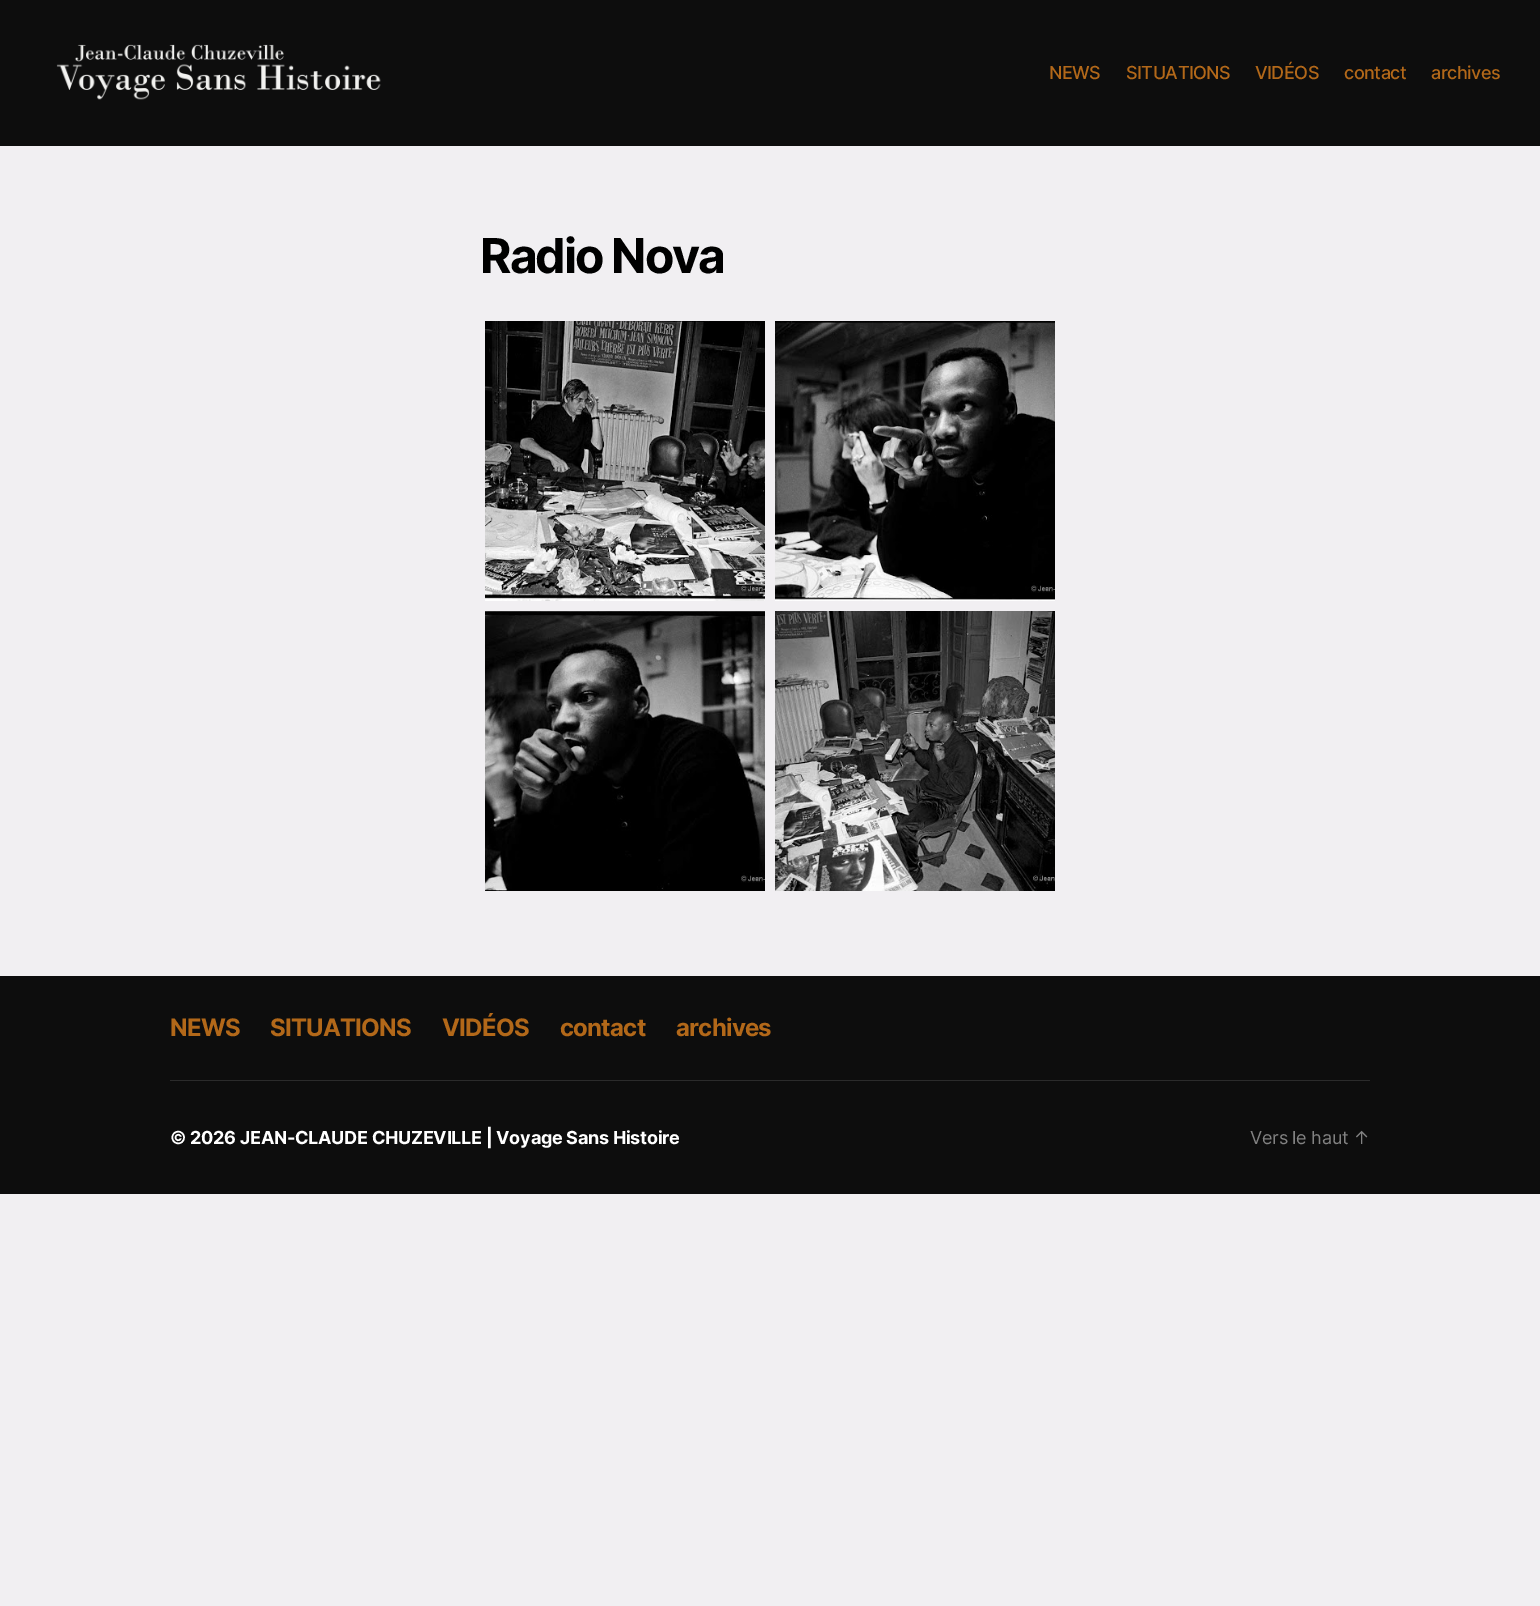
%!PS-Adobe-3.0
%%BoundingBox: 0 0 1540 1606
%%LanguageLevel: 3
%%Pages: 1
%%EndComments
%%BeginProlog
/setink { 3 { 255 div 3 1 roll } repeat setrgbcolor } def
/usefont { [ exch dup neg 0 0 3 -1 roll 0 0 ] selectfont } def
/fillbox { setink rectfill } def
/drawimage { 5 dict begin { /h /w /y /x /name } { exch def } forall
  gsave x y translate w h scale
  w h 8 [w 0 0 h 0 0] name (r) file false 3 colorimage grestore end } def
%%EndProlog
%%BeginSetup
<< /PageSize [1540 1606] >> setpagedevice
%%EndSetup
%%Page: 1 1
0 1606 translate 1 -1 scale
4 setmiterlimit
0 0 1540 1606 241 239 242 fillbox
0 0 1540 146 13 13 13 fillbox
(assets/img1.rgb) 56 44 325 56 drawimage
/Inter-Medium 18 usefont
178 104 25 setink
1049 79 moveto -0.5 0 (NEWS) ashow
1126 79 moveto -0.5 0 (SITUATIONS) ashow
1255 79 moveto -0.5 0 (VIDÉOS) ashow
1344 79 moveto -0.5 0 (contact) ashow
1431 79 moveto -0.5 0 (archives) ashow
/Inter-Bold 48 usefont
0 0 0 setink
480 273 moveto -2 0 (Radio Nova) ashow
(assets/img2.rgb) 485 321 280 280 drawimage
(assets/img3.rgb) 775 321 280 280 drawimage
(assets/img4.rgb) 485 611 280 280 drawimage
(assets/img5.rgb) 775 611 280 280 drawimage
0 976 1540 218 13 13 13 fillbox
170 1080 1200 1 43 43 43 fillbox
/Inter-Bold 24 usefont
178 104 25 setink
170 1036 moveto -0.75 0 (NEWS) ashow
270 1036 moveto -0.75 0 (SITUATIONS) ashow
442 1036 moveto -0.75 0 (VIDÉOS) ashow
560 1036 moveto -0.75 0 (contact) ashow
676 1036 moveto -0.75 0 (archives) ashow
/Inter-Bold 18 usefont
255 255 255 setink
170 1144 moveto -0.27 0 (© 2026 JEAN-CLAUDE CHUZEVILLE | Voyage Sans Histoire) ashow
/Inter-Regular 18 usefont
130 130 130 setink
1250 1144 moveto -0.27 0 (Vers le haut ↑) ashow
showpage
%%EOF
